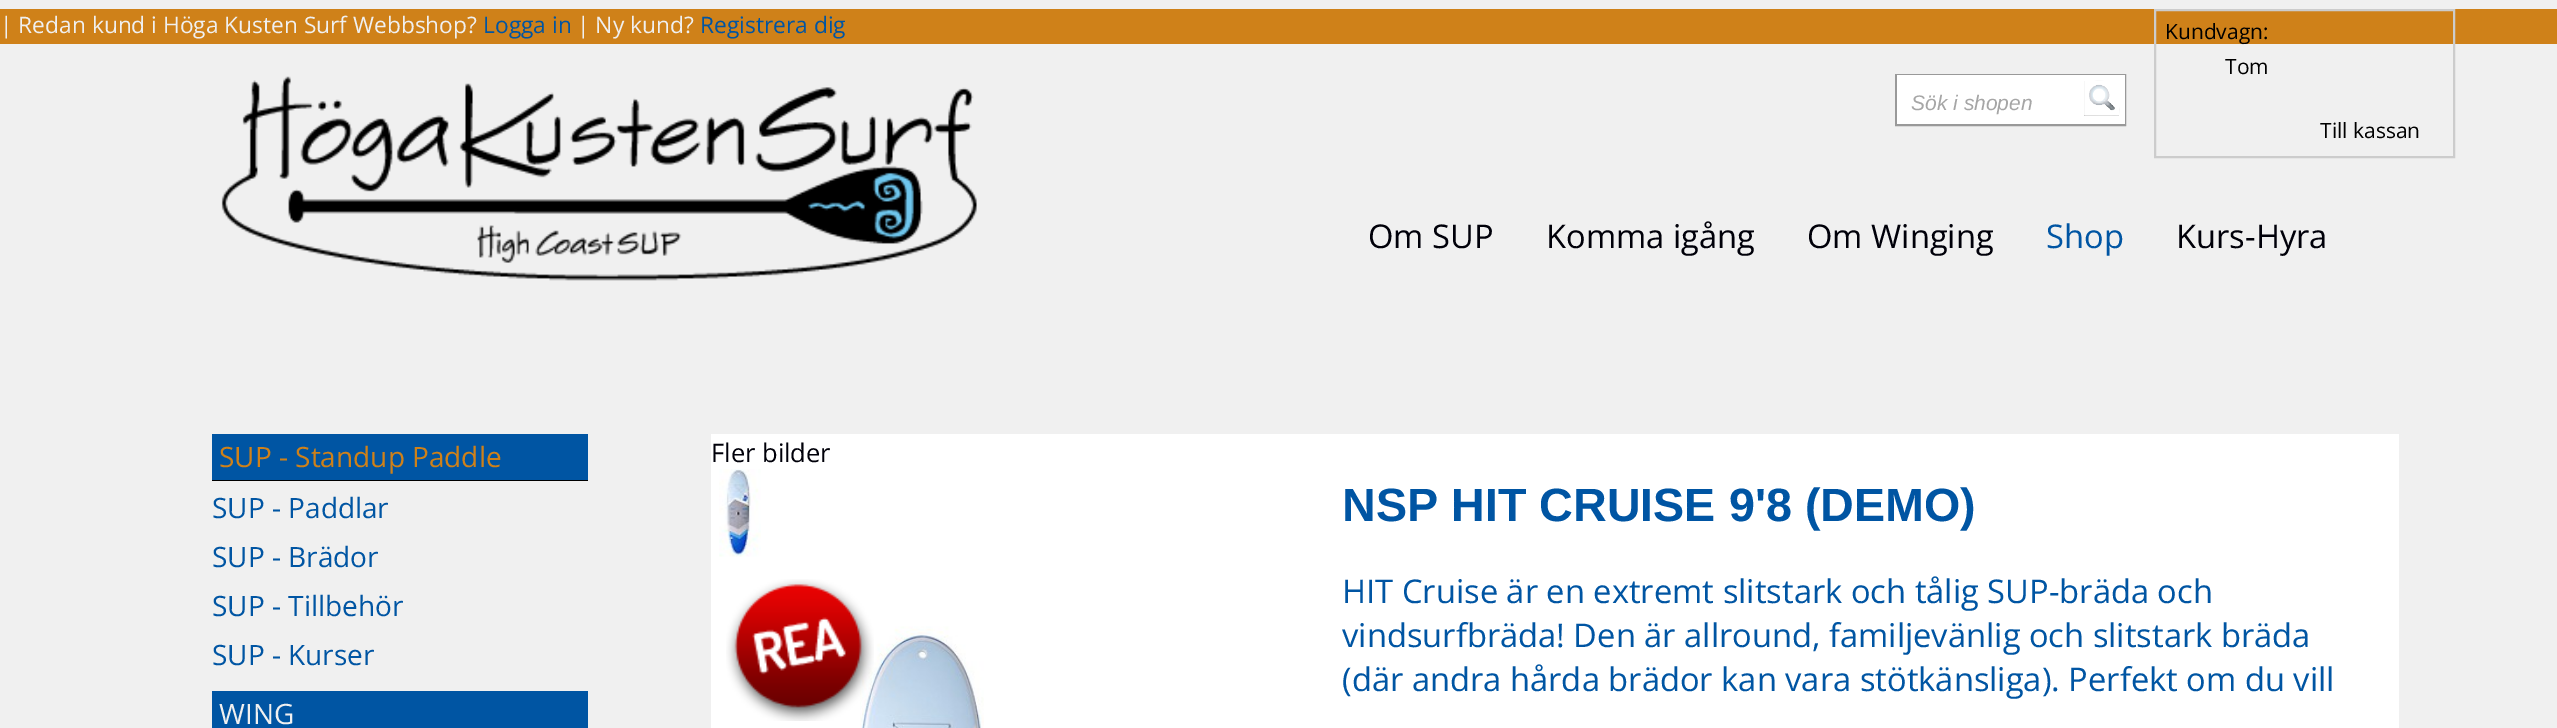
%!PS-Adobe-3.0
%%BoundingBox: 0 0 2557 728
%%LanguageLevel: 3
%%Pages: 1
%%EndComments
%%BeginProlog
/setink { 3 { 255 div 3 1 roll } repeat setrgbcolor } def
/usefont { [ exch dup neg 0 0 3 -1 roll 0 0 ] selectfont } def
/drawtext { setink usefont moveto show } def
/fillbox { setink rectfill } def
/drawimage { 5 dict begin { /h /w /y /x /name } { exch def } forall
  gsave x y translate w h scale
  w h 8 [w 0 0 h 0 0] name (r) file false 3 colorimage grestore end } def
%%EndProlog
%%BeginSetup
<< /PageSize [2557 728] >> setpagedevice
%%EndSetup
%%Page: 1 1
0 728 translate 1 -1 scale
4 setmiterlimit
0 0 2557 728 240 240 240 fillbox
0 9 2557 35 207 129 25 fillbox
(| Redan kund i Höga Kusten Surf Webbshop?) 0 33 /OpenSans-Regular 22.75 240 240 240 drawtext
(Logga in) 483 33 /OpenSans-Regular 22.75 0 85 163 drawtext
(| Ny kund?) 577 33 /OpenSans-Regular 22.75 240 240 240 drawtext
(Registrera dig) 700 33 /OpenSans-Regular 22.75 0 85 163 drawtext
204 204 204 setink
2 setlinewidth
2155 10 299 147 rectstroke
(Kundvagn:) 2165 39 /OpenSans-Regular 21 0 0 0 drawtext
(Tom) 2225 74 /OpenSans-Regular 21 0 0 0 drawtext
153 153 153 setink
1896 75 229 50 rectstroke
1897 75 228 49 255 255 255 fillbox
(Sök i shopen) 1911 110 /LiberationSans-Italic 21 166 166 166 drawtext
2084 81 35 35 128 128 128 fillbox
(assets/img1.rgb) 2084 80 36 36 drawimage
(assets/img2.rgb) 2084 81 35 35 drawimage
(Till kassan) 2320 138 /OpenSans-Regular 21 0 0 0 drawtext
(assets/img3.rgb) 221 76 756 205 drawimage
(Om SUP) 1368 248 /OpenSans-Regular 32.7 0 0 9 drawtext
(Komma igång) 1546 248 /OpenSans-Regular 32.7 0 0 9 drawtext
(Om Winging) 1807 248 /OpenSans-Regular 32.7 0 0 9 drawtext
(Shop) 2046 248 /OpenSans-Regular 32.7 0 85 163 drawtext
(Kurs-Hyra) 2176 248 /OpenSans-Regular 32.7 0 0 9 drawtext
212 434 376 46 0 85 163 fillbox
212 480 376 1 0 0 0 fillbox
(SUP - Standup Paddle) 219 467 /OpenSans-Regular 28 207 129 25 drawtext
(SUP - Paddlar) 212 518 /OpenSans-Regular 28 0 85 163 drawtext
(SUP - Brädor) 212 567 /OpenSans-Regular 28 0 85 163 drawtext
(SUP - Tillbehör) 212 616 /OpenSans-Regular 28 0 85 163 drawtext
(SUP - Kurser) 212 665 /OpenSans-Regular 28 0 85 163 drawtext
212 691 376 37 0 85 163 fillbox
(WING) 219 724 /OpenSans-Regular 28 240 240 240 drawtext
711 434 1688 294 255 255 255 fillbox
(Fler bilder) 711 462 /OpenSans-Regular 25.5 0 0 9 drawtext
(assets/img4.rgb) 719 469 42 88 drawimage
(assets/img6.rgb) 860 626 124 102 drawimage
(assets/img5.rgb) 726 579 148 142 drawimage
(NSP HIT CRUISE 9'8 \(DEMO\)) 1342 521 /LiberationSans-Bold 46.7 0 85 163 drawtext
(HIT Cruise är en extremt slitstark och tålig SUP-bräda och) 1342 603 /OpenSans-Regular 32.7 0 85 163 drawtext
(vindsurfbräda! Den är allround, familjevänlig och slitstark bräda) 1342 647 /OpenSans-Regular 32.7 0 85 163 drawtext
(\(där andra hårda brädor kan vara stötkänsliga\). Perfekt om du vill) 1342 691 /OpenSans-Regular 32.7 0 85 163 drawtext
showpage
%%EOF
